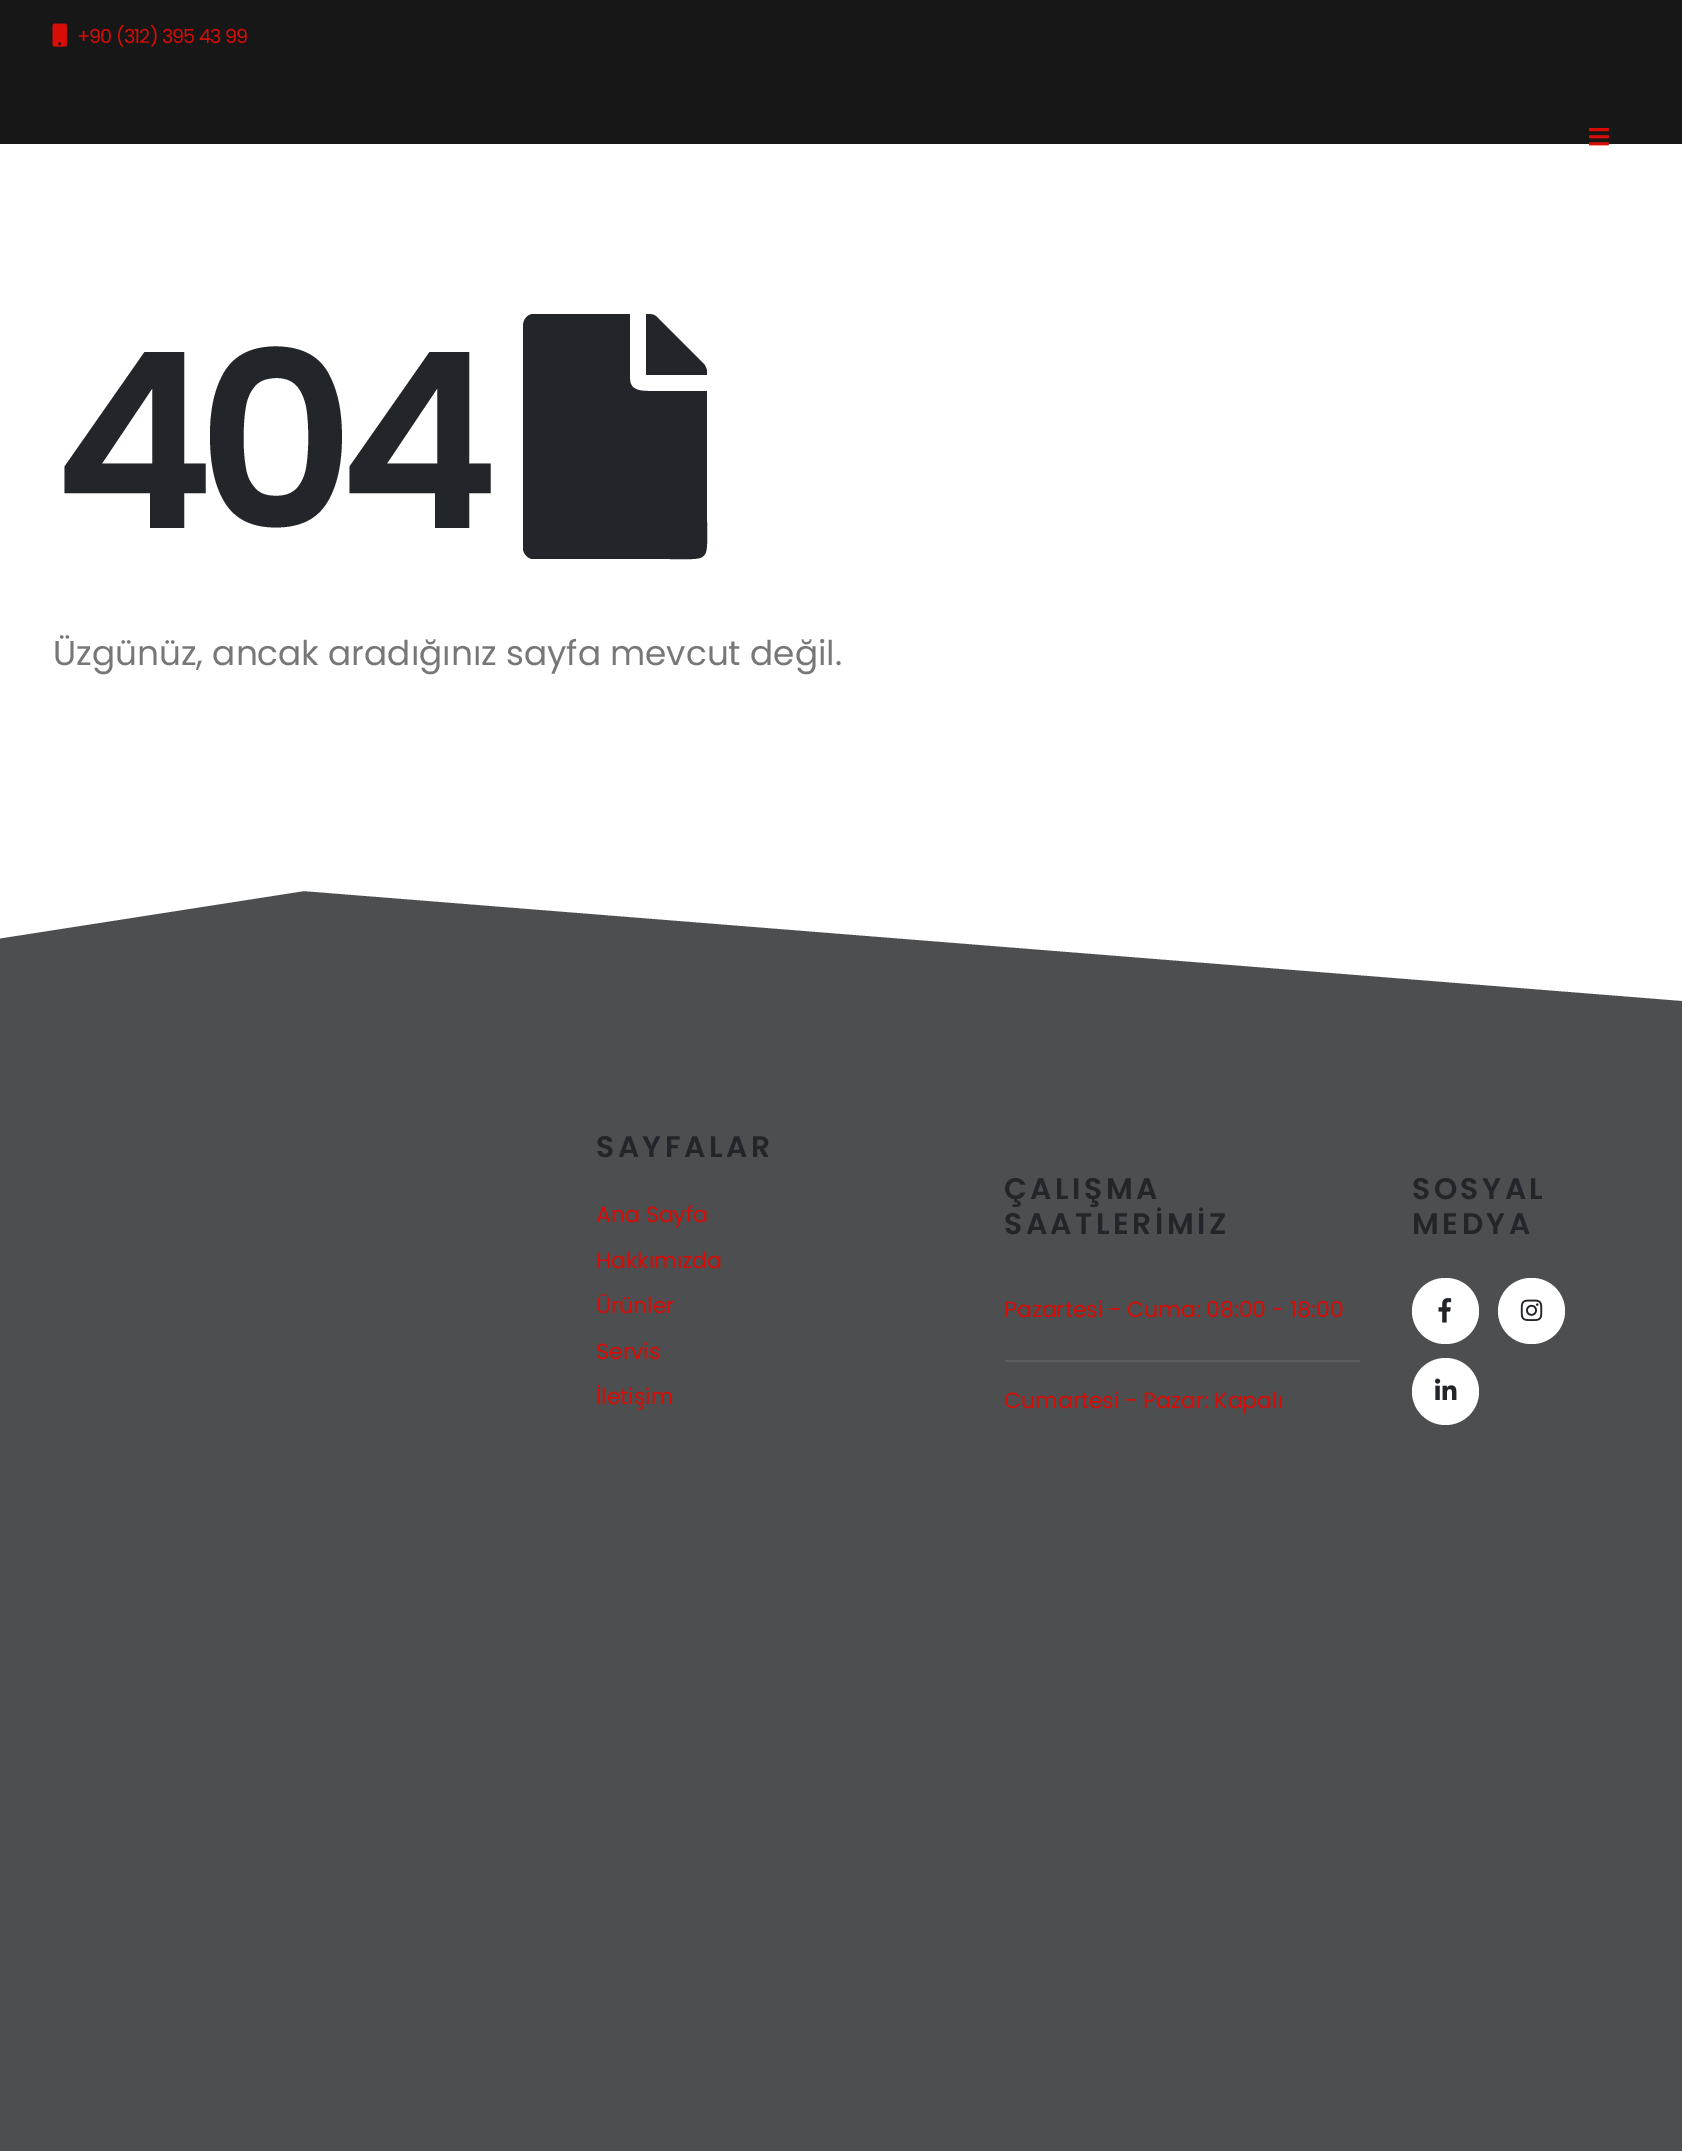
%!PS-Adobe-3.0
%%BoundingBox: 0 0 1682 2151
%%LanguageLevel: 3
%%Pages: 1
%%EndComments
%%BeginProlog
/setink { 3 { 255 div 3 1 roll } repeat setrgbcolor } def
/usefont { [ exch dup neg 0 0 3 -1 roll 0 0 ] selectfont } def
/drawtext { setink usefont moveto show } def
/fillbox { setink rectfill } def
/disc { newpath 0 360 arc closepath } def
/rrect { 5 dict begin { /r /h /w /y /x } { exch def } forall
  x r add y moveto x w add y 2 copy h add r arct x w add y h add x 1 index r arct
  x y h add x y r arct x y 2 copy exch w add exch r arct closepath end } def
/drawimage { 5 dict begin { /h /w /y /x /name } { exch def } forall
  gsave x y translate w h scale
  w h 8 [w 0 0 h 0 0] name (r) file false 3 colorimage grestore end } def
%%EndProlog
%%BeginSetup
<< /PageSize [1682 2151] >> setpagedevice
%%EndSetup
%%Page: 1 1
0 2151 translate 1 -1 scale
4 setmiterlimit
0 0 1682 2151 255 255 255 fillbox
0 0 1682 144 23 23 23 fillbox
(assets/img1.rgb) 52 23 15 24 drawimage
/Poppins-Regular 19.25 usefont
216 13 7 setink
77 43 moveto -0.9 0 (+90 \(312\) 395 43 99) ashow
(assets/img2.rgb) 1589 128 20 18 drawimage
/Poppins-SemiBold 245 usefont
34 37 41 setink
53 528 moveto -17.5 0 (404) ashow
630 379 moveto 630 392 644 391 653 391 curveto 707 391 lineto 707 521 lineto 707 563 711 559 669 559 curveto 532 559 lineto 527 558 523 553 523 548 curveto 523 326 lineto 523 320 527 315 532 314 curveto 630 314 lineto closepath 707 373 moveto 707 375 lineto 646 375 lineto 646 314 lineto 649 314 lineto 652 314 655 315 657 317 curveto 704 364 lineto 706 367 707 369 707 373 curveto closepath fill
(Üzgünüz, ancak aradığınız sayfa mevcut değil.) 53 665 /Poppins-Regular 34.3 119 119 119 drawtext
0 891 1183 70 77 78 80 fillbox
0 961 1682 1190 77 78 80 fillbox
gsave
0 877 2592 210 rectclip
255 255 255 setink
-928 1083 moveto 304 891 lineto 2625 1076 lineto 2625 850 lineto -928 850 lineto closepath fill
grestore
/Poppins-SemiBold 29.75 usefont
34 37 41 setink
596 1157 moveto 3.5 0 (SAYFALAR) ashow
(Ana Sayfa) 596 1222 /Poppins-Regular 22 216 13 7 drawtext
(Hakkımızda) 596 1268 /Poppins-Regular 22 216 13 7 drawtext
(Ürünler) 596 1313 /Poppins-Regular 22 216 13 7 drawtext
(Servis) 596 1359 /Poppins-Regular 22 216 13 7 drawtext
(İletişim) 596 1404 /Poppins-Regular 22 216 13 7 drawtext
/Poppins-SemiBold 29.75 usefont
34 37 41 setink
1004 1199 moveto 3.5 0 (ÇALIŞMA) ashow
1004 1234 moveto 3.5 0 (SAATLERİMİZ) ashow
(Pazartesi - Cuma: 08:00 - 18:00) 1004 1317 /Poppins-Regular 22 216 13 7 drawtext
1005 1360 355 2 92 93 95 fillbox
(Cumartesi - Pazar: Kapalı) 1004 1408 /Poppins-Regular 22 216 13 7 drawtext
/Poppins-SemiBold 29.75 usefont
34 37 41 setink
1412 1199 moveto 3.5 0 (SOSYAL) ashow
1412 1234 moveto 3.5 0 (MEDYA) ashow
255 255 255 setink
1412 1278 67 66 33 rrect fill
(assets/img3.rgb) 1438 1298 14 25 drawimage
1498 1278 67 66 33 rrect fill
(assets/img4.rgb) 1520 1299 23 22 drawimage
1445.5 1391.5 33.5 disc fill
(assets/img5.rgb) 1435 1378 22 22 drawimage
showpage
%%EOF
